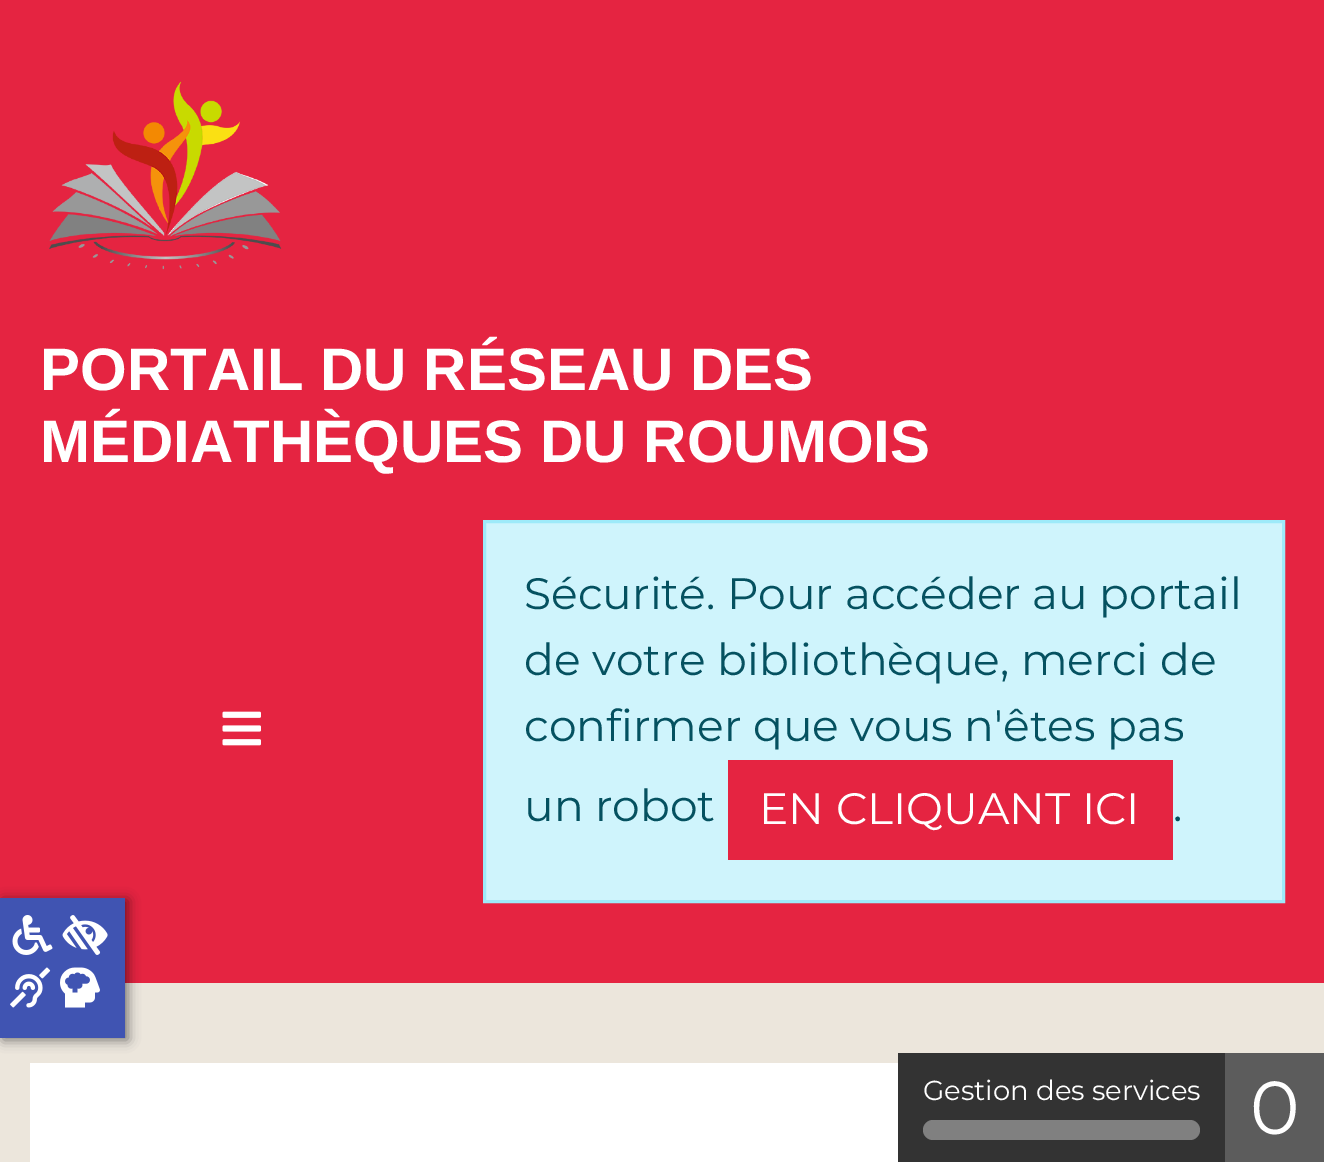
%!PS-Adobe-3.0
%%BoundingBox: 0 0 1324 1162
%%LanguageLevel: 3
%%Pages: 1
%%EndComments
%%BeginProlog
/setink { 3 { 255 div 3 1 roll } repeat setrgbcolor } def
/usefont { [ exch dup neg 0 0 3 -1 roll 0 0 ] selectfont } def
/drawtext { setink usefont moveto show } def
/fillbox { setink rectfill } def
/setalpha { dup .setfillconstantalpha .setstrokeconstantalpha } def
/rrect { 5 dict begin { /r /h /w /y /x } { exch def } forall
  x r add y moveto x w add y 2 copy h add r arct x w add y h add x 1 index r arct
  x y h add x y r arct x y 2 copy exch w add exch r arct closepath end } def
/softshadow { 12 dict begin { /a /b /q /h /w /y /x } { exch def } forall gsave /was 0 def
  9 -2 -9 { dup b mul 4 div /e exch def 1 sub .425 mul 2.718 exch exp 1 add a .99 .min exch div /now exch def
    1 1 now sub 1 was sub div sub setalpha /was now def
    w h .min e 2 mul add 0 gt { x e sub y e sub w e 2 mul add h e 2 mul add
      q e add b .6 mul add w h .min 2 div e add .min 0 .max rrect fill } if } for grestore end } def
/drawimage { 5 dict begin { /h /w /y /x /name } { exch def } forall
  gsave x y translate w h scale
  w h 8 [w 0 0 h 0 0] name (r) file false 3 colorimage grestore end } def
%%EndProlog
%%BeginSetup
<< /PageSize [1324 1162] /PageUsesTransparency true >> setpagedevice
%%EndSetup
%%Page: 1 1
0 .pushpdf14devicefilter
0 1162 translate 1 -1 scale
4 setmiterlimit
0 0 1324 1162 236 230 220 fillbox
0 0 1324 983 229 36 65 fillbox
(assets/img1.rgb) 49 81 233 189 drawimage
(PORTAIL DU RÉSEAU DES) 40 390 /LiberationSans-Bold 60 255 255 255 drawtext
(MÉDIATHÈQUES DU ROUMOIS) 40 462 /LiberationSans-Bold 60 255 255 255 drawtext
(assets/img2.rgb) 222 711 39 35 drawimage
207 244 252 setink
484.5 521.5 moveto 1283.5 521.5 lineto 1283.5 901.5 lineto 484.5 901.5 lineto closepath gsave fill grestore
158 234 249 setink
3 setlinewidth
stroke
(Sécurité. Pour accéder au portail) 524 609 /Montserrat-Regular 44 5 81 96 drawtext
(de votre bibliothèque, merci de) 524 675 /Montserrat-Regular 44 5 81 96 drawtext
(confirmer que vous n'êtes pas) 524 741 /Montserrat-Regular 44 5 81 96 drawtext
(un robot) 524 821 /Montserrat-Regular 44 5 81 96 drawtext
728 760 445 100 229 36 65 fillbox
(EN CLIQUANT ICI) 759 824 /Montserrat-Regular 44 255 255 255 drawtext
(.) 1173 821 /Montserrat-Regular 44 5 81 96 drawtext
0 0 0 setink
3 900 125 140 0 6 0.5 softshadow
0 898 125 140 64 84 178 fillbox
(assets/img3.rgb) 12 915 41 40 drawimage
(assets/img4.rgb) 62 915 46 40 drawimage
(assets/img5.rgb) 10 967 41 41 drawimage
(assets/img6.rgb) 60 967 40 41 drawimage
30 1063 868 99 255 255 255 fillbox
898 1053 327 109 51 51 51 fillbox
(Gestion des services) 923 1100 /Montserrat-Regular 27.5 255 255 255 drawtext
128 128 128 setink
923 1120 277 20 10 rrect fill
1225 1053 99 109 92 92 92 fillbox
(0) 1250 1134 /Montserrat-Regular 75 255 255 255 drawtext
.poppdf14devicefilter showpage
%%EOF
